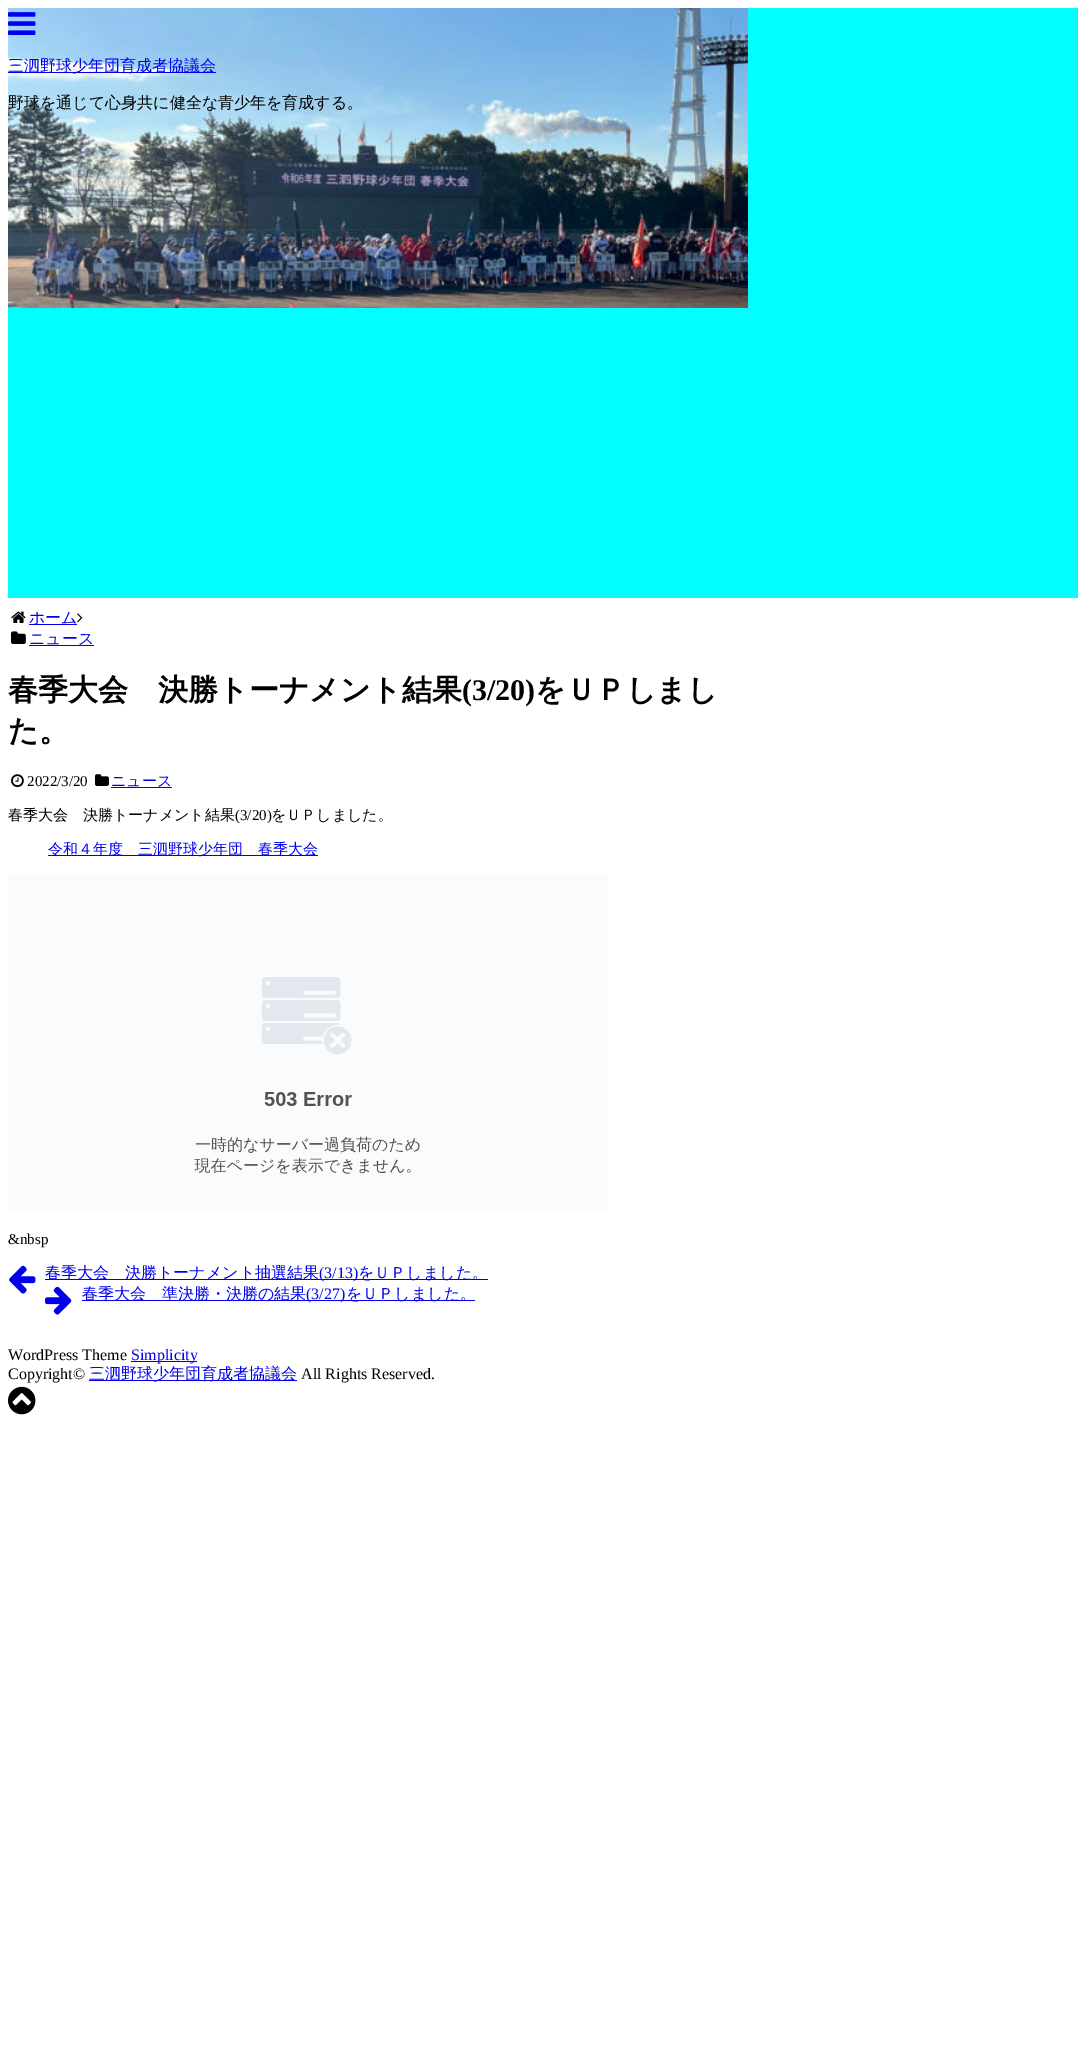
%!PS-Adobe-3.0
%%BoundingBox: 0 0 1086 2061
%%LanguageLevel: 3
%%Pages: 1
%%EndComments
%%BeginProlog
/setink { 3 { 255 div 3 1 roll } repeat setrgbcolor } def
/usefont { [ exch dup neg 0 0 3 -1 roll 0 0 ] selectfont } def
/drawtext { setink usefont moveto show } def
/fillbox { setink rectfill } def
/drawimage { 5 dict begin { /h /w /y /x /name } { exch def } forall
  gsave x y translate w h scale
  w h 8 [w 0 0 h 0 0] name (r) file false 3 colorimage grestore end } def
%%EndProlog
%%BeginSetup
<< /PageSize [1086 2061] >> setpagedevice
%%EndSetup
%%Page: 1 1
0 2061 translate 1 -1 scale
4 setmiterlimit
0 0 1086 2061 255 255 255 fillbox
8 8 1070 590 0 255 255 fillbox
(assets/img1.rgb) 8 8 740 300 drawimage
(assets/img2.rgb) 8 12 28 23 drawimage
8 72 208 1 0 0 238 fillbox
(三泗野球少年団育成者協議会) 8 71 /WenQuanYiZenHei-Medium 16 0 0 238 drawtext
(野球を通じて心身共に健全な青少年を育成する。) 8 108 /WenQuanYiZenHei-Medium 16 0 0 0 drawtext
(assets/img3.rgb) 11 611 15 12 drawimage
29 624 48 1 0 0 238 fillbox
(ホーム) 29 623 /WenQuanYiZenHei-Medium 16 0 0 238 drawtext
(assets/img4.rgb) 77 613 6 10 drawimage
(assets/img5.rgb) 11 631 15 13 drawimage
(ニュース) 29 644 /WenQuanYiZenHei-Medium 16 0 0 238 drawtext
29 645 65 1 0 0 238 fillbox
(春季大会　決勝トーナメント結果) 8 700 /WenQuanYiZenHei-Bold 30 0 0 0 drawtext
(\(3/20\)) 462 700 /LiberationSerif-Bold 30 0 0 0 drawtext
(をＵＰしまし) 535 700 /WenQuanYiZenHei-Bold 30 0 0 0 drawtext
(た。) 8 741 /WenQuanYiZenHei-Bold 30 0 0 0 drawtext
(assets/img6.rgb) 11 774 13 14 drawimage
(2022/3/20) 27 786 /LiberationSerif-Regular 15 0 0 0 drawtext
(assets/img7.rgb) 95 774 14 12 drawimage
(ニュース) 111 786 /WenQuanYiZenHei-Medium 15 0 0 238 drawtext
111 787 61 1 0 0 238 fillbox
(春季大会　決勝トーナメント結果) 8 820 /WenQuanYiZenHei-Medium 15 0 0 0 drawtext
(\(3/20\)) 235 820 /LiberationSerif-Regular 15 0 0 0 drawtext
(をＵＰしました。) 271 820 /WenQuanYiZenHei-Medium 15 0 0 0 drawtext
48 855 270 1 0 0 238 fillbox
(令和４年度　三泗野球少年団　春季大会) 48 854 /WenQuanYiZenHei-Medium 15 0 0 238 drawtext
(assets/img8.rgb) 8 874 600 338 drawimage
(&nbsp) 8 1244 /LiberationSerif-Regular 15 0 0 0 drawtext
(assets/img9.rgb) 9 1265 27 29 drawimage
45 1279 443 1 0 0 238 fillbox
(春季大会　決勝トーナメント抽選結果) 45 1278 /WenQuanYiZenHei-Medium 16 0 0 238 drawtext
(\(3/13\)) 319 1278 /LiberationSerif-Regular 16 0 0 238 drawtext
(をＵＰしました。) 358 1278 /WenQuanYiZenHei-Medium 16 0 0 238 drawtext
(assets/img10.rgb) 45 1286 27 29 drawimage
82 1300 393 1 0 0 238 fillbox
(春季大会　準決勝・決勝の結果) 82 1299 /WenQuanYiZenHei-Medium 16 0 0 238 drawtext
(\(3/27\)) 306 1299 /LiberationSerif-Regular 16 0 0 238 drawtext
(をＵＰしました。) 346 1299 /WenQuanYiZenHei-Medium 16 0 0 238 drawtext
(WordPress Theme) 8 1360 /LiberationSerif-Regular 16 0 0 0 drawtext
131 1361 66 1 0 0 238 fillbox
(Simplicity) 131 1360 /LiberationSerif-Regular 16 0 0 238 drawtext
(Copyright©) 8 1379 /LiberationSerif-Regular 16 0 0 0 drawtext
89 1380 208 1 0 0 238 fillbox
(三泗野球少年団育成者協議会) 89 1379 /WenQuanYiZenHei-Medium 16 0 0 238 drawtext
(All Rights Reserved.) 301 1379 /LiberationSerif-Regular 16 0 0 0 drawtext
(assets/img11.rgb) 8 1386 28 29 drawimage
showpage
%%EOF
